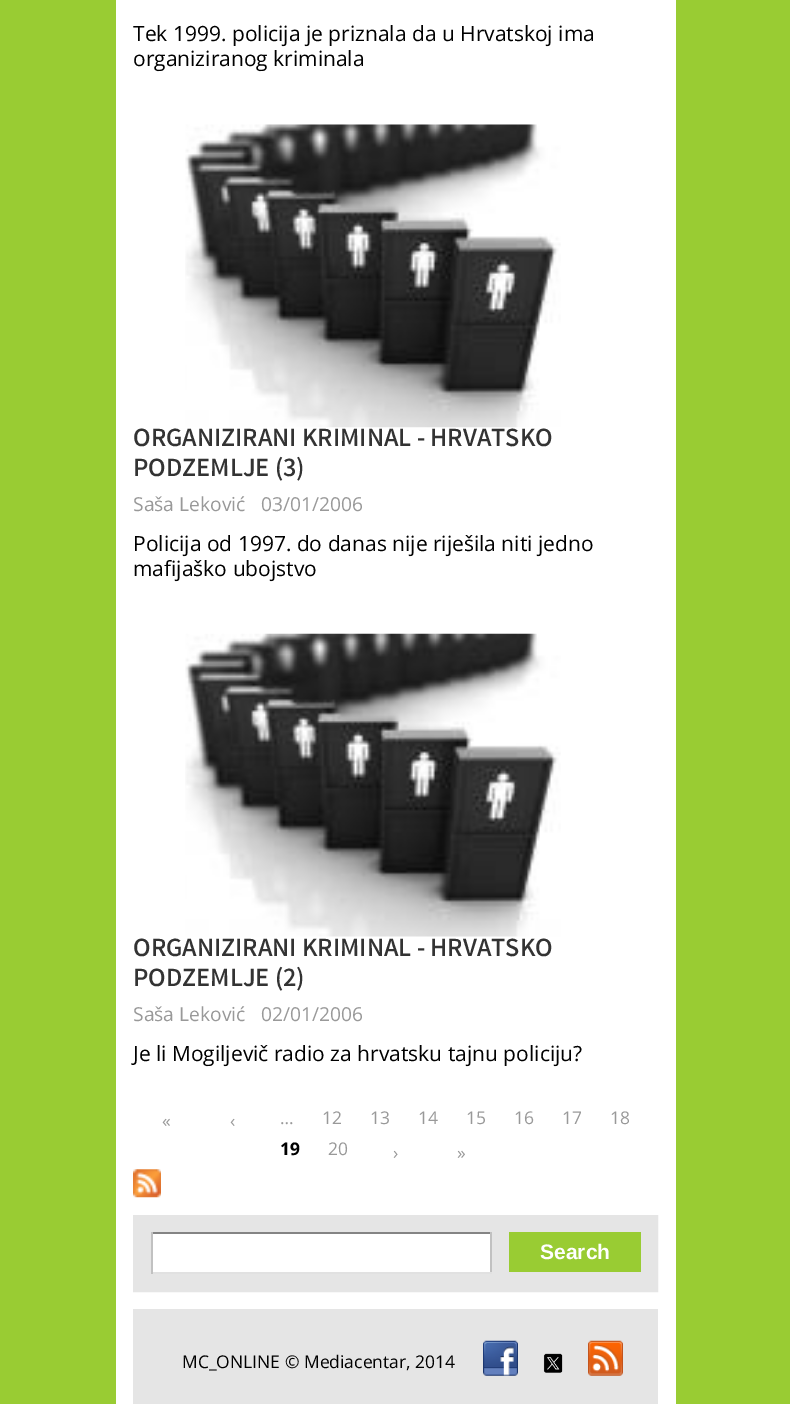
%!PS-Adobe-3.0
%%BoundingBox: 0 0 790 1404
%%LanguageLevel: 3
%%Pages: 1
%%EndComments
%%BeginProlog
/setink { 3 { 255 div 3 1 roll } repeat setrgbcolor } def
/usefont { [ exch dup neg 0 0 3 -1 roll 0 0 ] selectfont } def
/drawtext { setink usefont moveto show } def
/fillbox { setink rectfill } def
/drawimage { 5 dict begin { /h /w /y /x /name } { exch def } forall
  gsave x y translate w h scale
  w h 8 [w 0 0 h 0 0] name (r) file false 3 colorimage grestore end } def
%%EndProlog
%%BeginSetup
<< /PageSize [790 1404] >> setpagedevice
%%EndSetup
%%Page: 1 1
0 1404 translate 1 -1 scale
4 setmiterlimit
0 0 790 1404 153 204 51 fillbox
116 0 560 1404 255 255 255 fillbox
(Tek 1999. policija je priznala da u Hrvatskoj ima) 133 41 /OpenSans-Regular 21 0 0 0 drawtext
(organiziranog kriminala) 133 66 /OpenSans-Regular 21 0 0 0 drawtext
(assets/img1.rgb) 185 124 376 304 drawimage
(ORGANIZIRANI KRIMINAL - HRVATSKO) 133 446 /Varta-Bold 26.25 51 51 51 drawtext
(PODZEMLJE \(3\)) 133 476 /Varta-Bold 26.25 51 51 51 drawtext
(Saša Leković) 133 511 /OpenSans-Regular 19.25 153 153 153 drawtext
(03/01/2006) 261 511 /OpenSans-Regular 19.25 153 153 153 drawtext
(Policija od 1997. do danas nije riješila niti jedno) 133 551 /OpenSans-Regular 21 0 0 0 drawtext
(mafijaško ubojstvo) 133 576 /OpenSans-Regular 21 0 0 0 drawtext
(assets/img2.rgb) 185 633 376 304 drawimage
(ORGANIZIRANI KRIMINAL - HRVATSKO) 133 956 /Varta-Bold 26.25 51 51 51 drawtext
(PODZEMLJE \(2\)) 133 986 /Varta-Bold 26.25 51 51 51 drawtext
(Saša Leković) 133 1021 /OpenSans-Regular 19.25 153 153 153 drawtext
(02/01/2006) 261 1021 /OpenSans-Regular 19.25 153 153 153 drawtext
(Je li Mogiljevič radio za hrvatsku tajnu policiju?) 133 1061 /OpenSans-Regular 21 0 0 0 drawtext
(«) 162 1127 /OpenSans-Regular 17.5 153 153 153 drawtext
(‹) 230 1127 /OpenSans-Regular 17.5 153 153 153 drawtext
(…) 280 1124 /OpenSans-Regular 17.5 153 153 153 drawtext
(12) 322 1124 /OpenSans-Regular 17.5 153 153 153 drawtext
(13) 370 1124 /OpenSans-Regular 17.5 153 153 153 drawtext
(14) 418 1124 /OpenSans-Regular 17.5 153 153 153 drawtext
(15) 466 1124 /OpenSans-Regular 17.5 153 153 153 drawtext
(16) 514 1124 /OpenSans-Regular 17.5 153 153 153 drawtext
(17) 562 1124 /OpenSans-Regular 17.5 153 153 153 drawtext
(18) 610 1124 /OpenSans-Regular 17.5 153 153 153 drawtext
(19) 280 1155 /OpenSans-Bold 17.5 0 0 0 drawtext
(20) 328 1155 /OpenSans-Regular 17.5 153 153 153 drawtext
(›) 393 1159 /OpenSans-Regular 17.5 153 153 153 drawtext
(») 457 1159 /OpenSans-Regular 17.5 153 153 153 drawtext
(assets/img3.rgb) 133 1169 28 29 drawimage
229 229 229 setink
18 setlinewidth
142 1224 507 59 rectstroke
492 1233 148 41 229 229 229 fillbox
151 1232 341 2 132 132 132 fillbox
490 1232 2 42 193 193 193 fillbox
151 1272 341 2 225 225 225 fillbox
151 1232 2 42 193 193 193 fillbox
509 1232 132 40 153 204 51 fillbox
(Search) 540 1259 /LiberationSans-Bold 21 255 255 255 drawtext
133 1309 525 95 229 229 229 fillbox
(MC_ONLINE © Mediacentar, 2014) 182 1368 /OpenSans-Regular 17.5 0 0 0 drawtext
(assets/img4.rgb) 483 1340 35 36 drawimage
(assets/img5.rgb) 543 1353 20 20 drawimage
(assets/img6.rgb) 588 1340 35 36 drawimage
showpage
%%EOF
